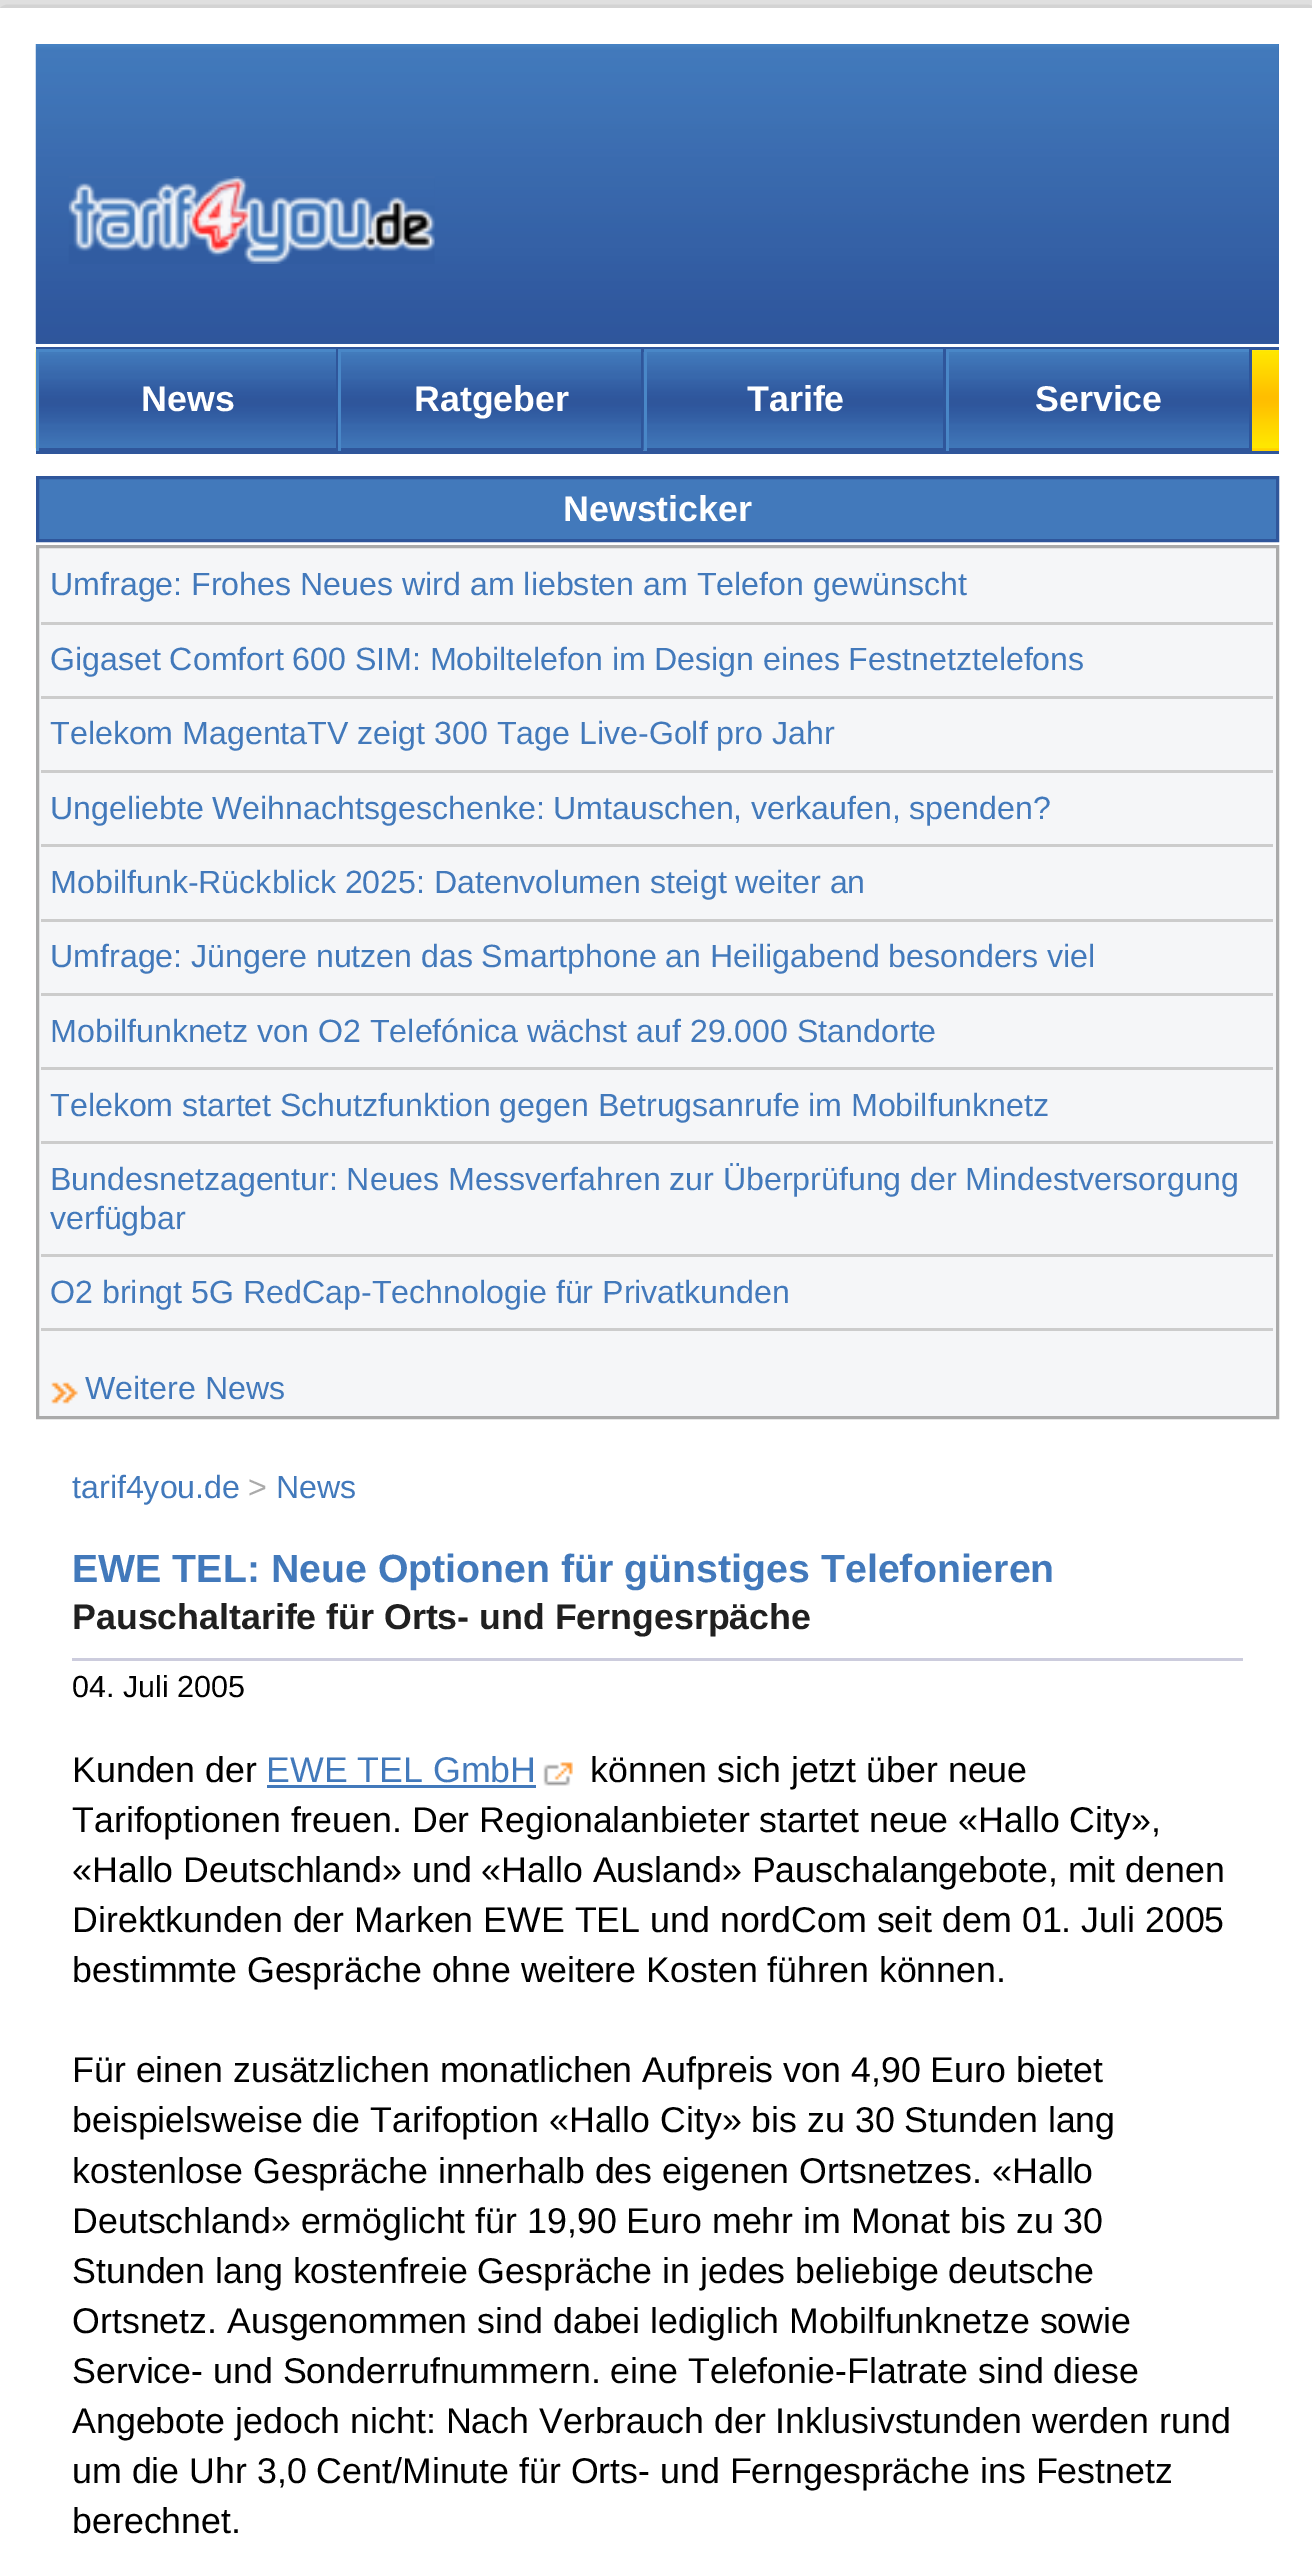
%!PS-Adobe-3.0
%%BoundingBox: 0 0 1312 2573
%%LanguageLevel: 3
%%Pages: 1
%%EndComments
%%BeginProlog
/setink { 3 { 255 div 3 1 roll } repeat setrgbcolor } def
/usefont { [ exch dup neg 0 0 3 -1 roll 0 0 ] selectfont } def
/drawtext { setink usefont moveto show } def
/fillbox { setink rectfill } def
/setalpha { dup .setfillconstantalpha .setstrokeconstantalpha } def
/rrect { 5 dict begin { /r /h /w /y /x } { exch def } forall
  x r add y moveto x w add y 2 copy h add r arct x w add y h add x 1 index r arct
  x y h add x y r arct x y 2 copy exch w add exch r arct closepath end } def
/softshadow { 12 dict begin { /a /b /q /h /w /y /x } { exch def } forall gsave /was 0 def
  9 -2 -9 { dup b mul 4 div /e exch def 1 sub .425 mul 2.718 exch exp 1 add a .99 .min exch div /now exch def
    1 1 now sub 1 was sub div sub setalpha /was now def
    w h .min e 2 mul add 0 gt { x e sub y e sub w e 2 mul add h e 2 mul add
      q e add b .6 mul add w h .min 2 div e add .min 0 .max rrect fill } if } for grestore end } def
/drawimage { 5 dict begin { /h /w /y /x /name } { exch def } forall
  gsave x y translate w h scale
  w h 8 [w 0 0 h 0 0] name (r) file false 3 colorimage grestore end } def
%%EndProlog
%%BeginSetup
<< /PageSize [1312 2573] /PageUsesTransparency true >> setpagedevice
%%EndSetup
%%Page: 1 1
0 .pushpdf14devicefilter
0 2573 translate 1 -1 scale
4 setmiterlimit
0 0 1312 2573 240 240 240 fillbox
125 125 125 setink
0 8 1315 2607 0 14 0.5 softshadow
0 8 1312 2565 255 255 255 fillbox
36 44 1243 300 56 103 171 fillbox
(assets/img1.rgb) 35 44 1244 300 drawimage
(assets/img2.rgb) 68 176 367 88 drawimage
1252 350 27 101 255 210 0 fillbox
(assets/img3.rgb) 35 347 1244 102 drawimage
36 347 1243 3 47 86 155 fillbox
36 451 1243 3 47 86 155 fillbox
(assets/img4.rgb) 35 352 301 99 drawimage
36 349 1215 3 73 135 199 fillbox
336 349 2 102 47 86 155 fillbox
36 448 302 3 47 86 155 fillbox
36 349 3 102 73 135 199 fillbox
(News) 141 411 /LiberationSans-Bold 35.75 255 255 255 drawtext
(assets/img5.rgb) 341 352 300 96 drawimage
641 349 3 102 47 86 155 fillbox
338 448 306 3 47 86 155 fillbox
338 349 3 102 73 135 199 fillbox
(Ratgeber) 414 411 /LiberationSans-Bold 35.75 255 255 255 drawtext
(assets/img6.rgb) 643 352 300 99 drawimage
943 349 3 102 47 86 155 fillbox
644 448 302 3 47 86 155 fillbox
644 349 3 102 73 135 199 fillbox
(Tarife) 747 411 /LiberationSans-Bold 35.75 255 255 255 drawtext
(assets/img5.rgb) 949 352 300 96 drawimage
1249 349 3 102 47 86 155 fillbox
946 448 305 3 47 86 155 fillbox
946 349 3 102 73 135 199 fillbox
(Service) 1035 411 /LiberationSans-Bold 35.75 255 255 255 drawtext
66 121 187 setink
37.5 477.5 moveto 1277.5 477.5 lineto 1277.5 540.5 lineto 37.5 540.5 lineto closepath gsave fill grestore
47 86 155 setink
3 setlinewidth
stroke
(Newsticker) 563 521 /LiberationSans-Bold 35.75 255 255 255 drawtext
245 246 248 setink
37.5 546.5 moveto 1277.5 546.5 lineto 1277.5 1417.5 lineto 37.5 1417.5 lineto closepath gsave fill grestore
170 170 170 setink
stroke
41 622 1232 3 204 204 204 fillbox
(Umfrage: Frohes Neues wird am liebsten am Telefon gewünscht) 50 595 /LiberationSans-Regular 32.15 66 121 187 drawtext
41 696 1232 3 204 204 204 fillbox
66 121 187 setink
50 670 moveto -0.25 0 32 (Gigaset Comfort 600 SIM: Mobiltelefon im Design eines Festnetztelefons) widthshow
41 770 1232 3 204 204 204 fillbox
(Telekom MagentaTV zeigt 300 Tage Live-Golf pro Jahr) 50 744 /LiberationSans-Regular 32.15 66 121 187 drawtext
41 844 1232 3 204 204 204 fillbox
66 121 187 setink
50 819 moveto -0.5 0 32 (Ungeliebte Weihnachtsgeschenke: Umtauschen, verkaufen, spenden?) widthshow
41 919 1232 3 204 204 204 fillbox
66 121 187 setink
50 893 moveto -0.25 0 32 (Mobilfunk-Rückblick 2025: Datenvolumen steigt weiter an) widthshow
41 993 1232 3 204 204 204 fillbox
66 121 187 setink
50 967 moveto -0.25 0 32 (Umfrage: Jüngere nutzen das Smartphone an Heiligabend besonders viel) widthshow
41 1067 1232 3 204 204 204 fillbox
(Mobilfunknetz von O2 Telefónica wächst auf 29.000 Standorte) 50 1042 /LiberationSans-Regular 32.15 66 121 187 drawtext
41 1141 1232 3 204 204 204 fillbox
66 121 187 setink
50 1116 moveto -0.25 0 32 (Telekom startet Schutzfunktion gegen Betrugsanrufe im Mobilfunknetz) widthshow
41 1254 1232 3 204 204 204 fillbox
66 121 187 setink
50 1190 moveto -0.25 0 32 (Bundesnetzagentur: Neues Messverfahren zur Überprüfung der Mindestversorgung) widthshow
(verfügbar) 50 1229 /LiberationSans-Regular 32.15 66 121 187 drawtext
41 1328 1232 3 204 204 204 fillbox
(O2 bringt 5G RedCap-Technologie für Privatkunden) 50 1303 /LiberationSans-Regular 32.15 66 121 187 drawtext
(assets/img7.rgb) 51 1382 27 22 drawimage
(Weitere News) 85 1399 /LiberationSans-Regular 32.15 66 121 187 drawtext
(tarif4you.de) 72 1498 /LiberationSans-Regular 32.15 66 121 187 drawtext
(>) 248 1498 /LiberationSans-Regular 32.15 170 170 170 drawtext
(News) 276 1498 /LiberationSans-Regular 32.15 66 121 187 drawtext
(EWE TEL: Neue Optionen für günstiges Telefonieren) 72 1582 /LiberationSans-Bold 39.3 66 121 187 drawtext
(Pauschaltarife für Orts- und Ferngesrpäche) 72 1629 /LiberationSans-Bold 35.75 32 32 32 drawtext
72 1658 1171 3 204 204 221 fillbox
(04. Juli 2005) 72 1697 /LiberationSans-Regular 30.5 0 0 0 drawtext
(Kunden der) 72 1782 /LiberationSans-Regular 35.75 0 0 0 drawtext
(EWE TEL GmbH) 266 1782 /LiberationSans-Regular 35.75 66 121 187 drawtext
267 1785 269 3 66 121 187 fillbox
(assets/img8.rgb) 543 1762 30 24 drawimage
(können sich jetzt über neue) 590 1782 /LiberationSans-Regular 35.75 0 0 0 drawtext
(Tarifoptionen freuen. Der Regionalanbieter startet neue «Hallo City»,) 72 1832 /LiberationSans-Regular 35.75 0 0 0 drawtext
(«Hallo Deutschland» und «Hallo Ausland» Pauschalangebote, mit denen) 72 1882 /LiberationSans-Regular 35.75 0 0 0 drawtext
(Direktkunden der Marken EWE TEL und nordCom seit dem 01. Juli 2005) 72 1932 /LiberationSans-Regular 35.75 0 0 0 drawtext
(bestimmte Gespräche ohne weitere Kosten führen können.) 72 1982 /LiberationSans-Regular 35.75 0 0 0 drawtext
(Für einen zusätzlichen monatlichen Aufpreis von 4,90 Euro bietet) 72 2082 /LiberationSans-Regular 35.75 0 0 0 drawtext
(beispielsweise die Tarifoption «Hallo City» bis zu 30 Stunden lang) 72 2132 /LiberationSans-Regular 35.75 0 0 0 drawtext
(kostenlose Gespräche innerhalb des eigenen Ortsnetzes. «Hallo) 72 2183 /LiberationSans-Regular 35.75 0 0 0 drawtext
(Deutschland» ermöglicht für 19,90 Euro mehr im Monat bis zu 30) 72 2233 /LiberationSans-Regular 35.75 0 0 0 drawtext
(Stunden lang kostenfreie Gespräche in jedes beliebige deutsche) 72 2283 /LiberationSans-Regular 35.75 0 0 0 drawtext
(Ortsnetz. Ausgenommen sind dabei lediglich Mobilfunknetze sowie) 72 2333 /LiberationSans-Regular 35.75 0 0 0 drawtext
(Service- und Sonderrufnummern. eine Telefonie-Flatrate sind diese) 72 2383 /LiberationSans-Regular 35.75 0 0 0 drawtext
(Angebote jedoch nicht: Nach Verbrauch der Inklusivstunden werden rund) 72 2433 /LiberationSans-Regular 35.75 0 0 0 drawtext
(um die Uhr 3,0 Cent/Minute für Orts- und Ferngespräche ins Festnetz) 72 2483 /LiberationSans-Regular 35.75 0 0 0 drawtext
(berechnet.) 72 2533 /LiberationSans-Regular 35.75 0 0 0 drawtext
.poppdf14devicefilter showpage
%%EOF
